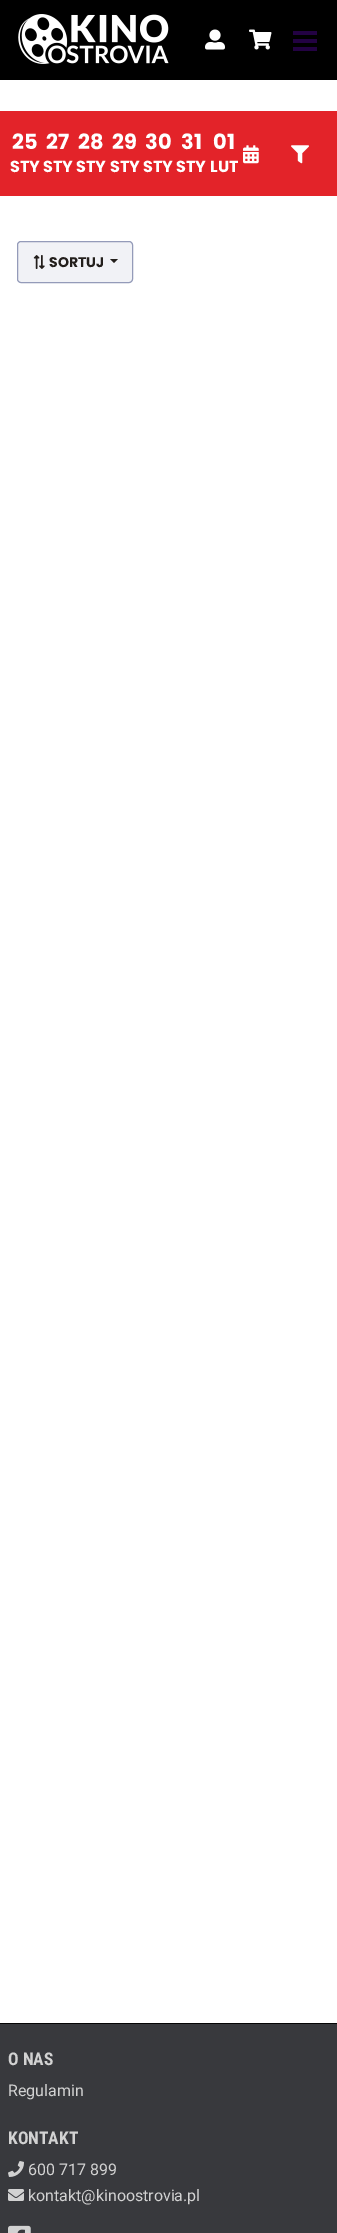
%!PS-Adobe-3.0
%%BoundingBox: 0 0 337 2233
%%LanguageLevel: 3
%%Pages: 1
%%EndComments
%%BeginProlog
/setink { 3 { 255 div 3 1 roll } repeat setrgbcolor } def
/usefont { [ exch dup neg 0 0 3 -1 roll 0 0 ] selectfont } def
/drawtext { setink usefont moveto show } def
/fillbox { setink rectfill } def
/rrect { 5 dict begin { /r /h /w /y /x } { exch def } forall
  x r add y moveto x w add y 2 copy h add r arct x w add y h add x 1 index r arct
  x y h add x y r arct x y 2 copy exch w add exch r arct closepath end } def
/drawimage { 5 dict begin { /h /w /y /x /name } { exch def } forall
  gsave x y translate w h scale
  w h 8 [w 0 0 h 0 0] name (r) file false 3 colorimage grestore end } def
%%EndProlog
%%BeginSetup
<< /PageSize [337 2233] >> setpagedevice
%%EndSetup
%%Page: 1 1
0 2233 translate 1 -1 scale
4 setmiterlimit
0 0 337 2233 255 255 255 fillbox
0 0 337 80 0 0 0 fillbox
(assets/img1.rgb) 18 14 151 50 drawimage
(assets/img2.rgb) 205 29 20 21 drawimage
(assets/img3.rgb) 249 29 23 21 drawimage
293 31 24 4 35 2 67 fillbox
293 39 24 4 35 2 67 fillbox
293 47 24 4 35 2 67 fillbox
0 111 337 85 227 35 41 fillbox
(25) 12 149 /Poppins-Bold 21 255 255 255 drawtext
(STY) 10 172 /Poppins-Bold 16 255 255 255 drawtext
(27) 46 149 /Poppins-Bold 21 255 255 255 drawtext
(STY) 43 172 /Poppins-Bold 16 255 255 255 drawtext
(28) 78 149 /Poppins-Bold 21 255 255 255 drawtext
(STY) 76 172 /Poppins-Bold 16 255 255 255 drawtext
(29) 112 149 /Poppins-Bold 21 255 255 255 drawtext
(STY) 110 172 /Poppins-Bold 16 255 255 255 drawtext
(30) 145 149 /Poppins-Bold 21 255 255 255 drawtext
(STY) 143 172 /Poppins-Bold 16 255 255 255 drawtext
(31) 181 149 /Poppins-Bold 21 255 255 255 drawtext
(STY) 176 172 /Poppins-Bold 16 255 255 255 drawtext
(01) 213 149 /Poppins-Bold 21 255 255 255 drawtext
(LUT) 210 172 /Poppins-Bold 16 255 255 255 drawtext
(assets/img4.rgb) 243 145 16 19 drawimage
(assets/img5.rgb) 291 145 18 19 drawimage
241 242 246 setink
17.5 241.5 115 41 3.5 rrect gsave fill grestore
148 155 185 setink
stroke
(assets/img6.rgb) 33 255 12 14 drawimage
(SORTUJ) 49 267 /Poppins-Bold 14 35 31 28 drawtext
110 259 moveto 118 259 lineto 114 263 lineto closepath fill
0 2024 337 209 56 57 61 fillbox
0 2023 337 1 5 5 5 fillbox
(O NAS) 8 2065 /RobotoCondensed-Bold 17.5 210 210 210 drawtext
(Regulamin) 8 2096 /Roboto-Regular 16 210 210 210 drawtext
(KONTAKT) 8 2144 /RobotoCondensed-Bold 17.5 210 210 210 drawtext
(assets/img7.rgb) 8 2161 16 16 drawimage
(600 717 899) 28 2175 /Roboto-Regular 16 210 210 210 drawtext
(assets/img8.rgb) 8 2189 16 12 drawimage
(kontakt@kinoostrovia.pl) 28 2201 /Roboto-Regular 16 210 210 210 drawtext
(assets/img9.rgb) 8 2225 23 8 drawimage
showpage
%%EOF
